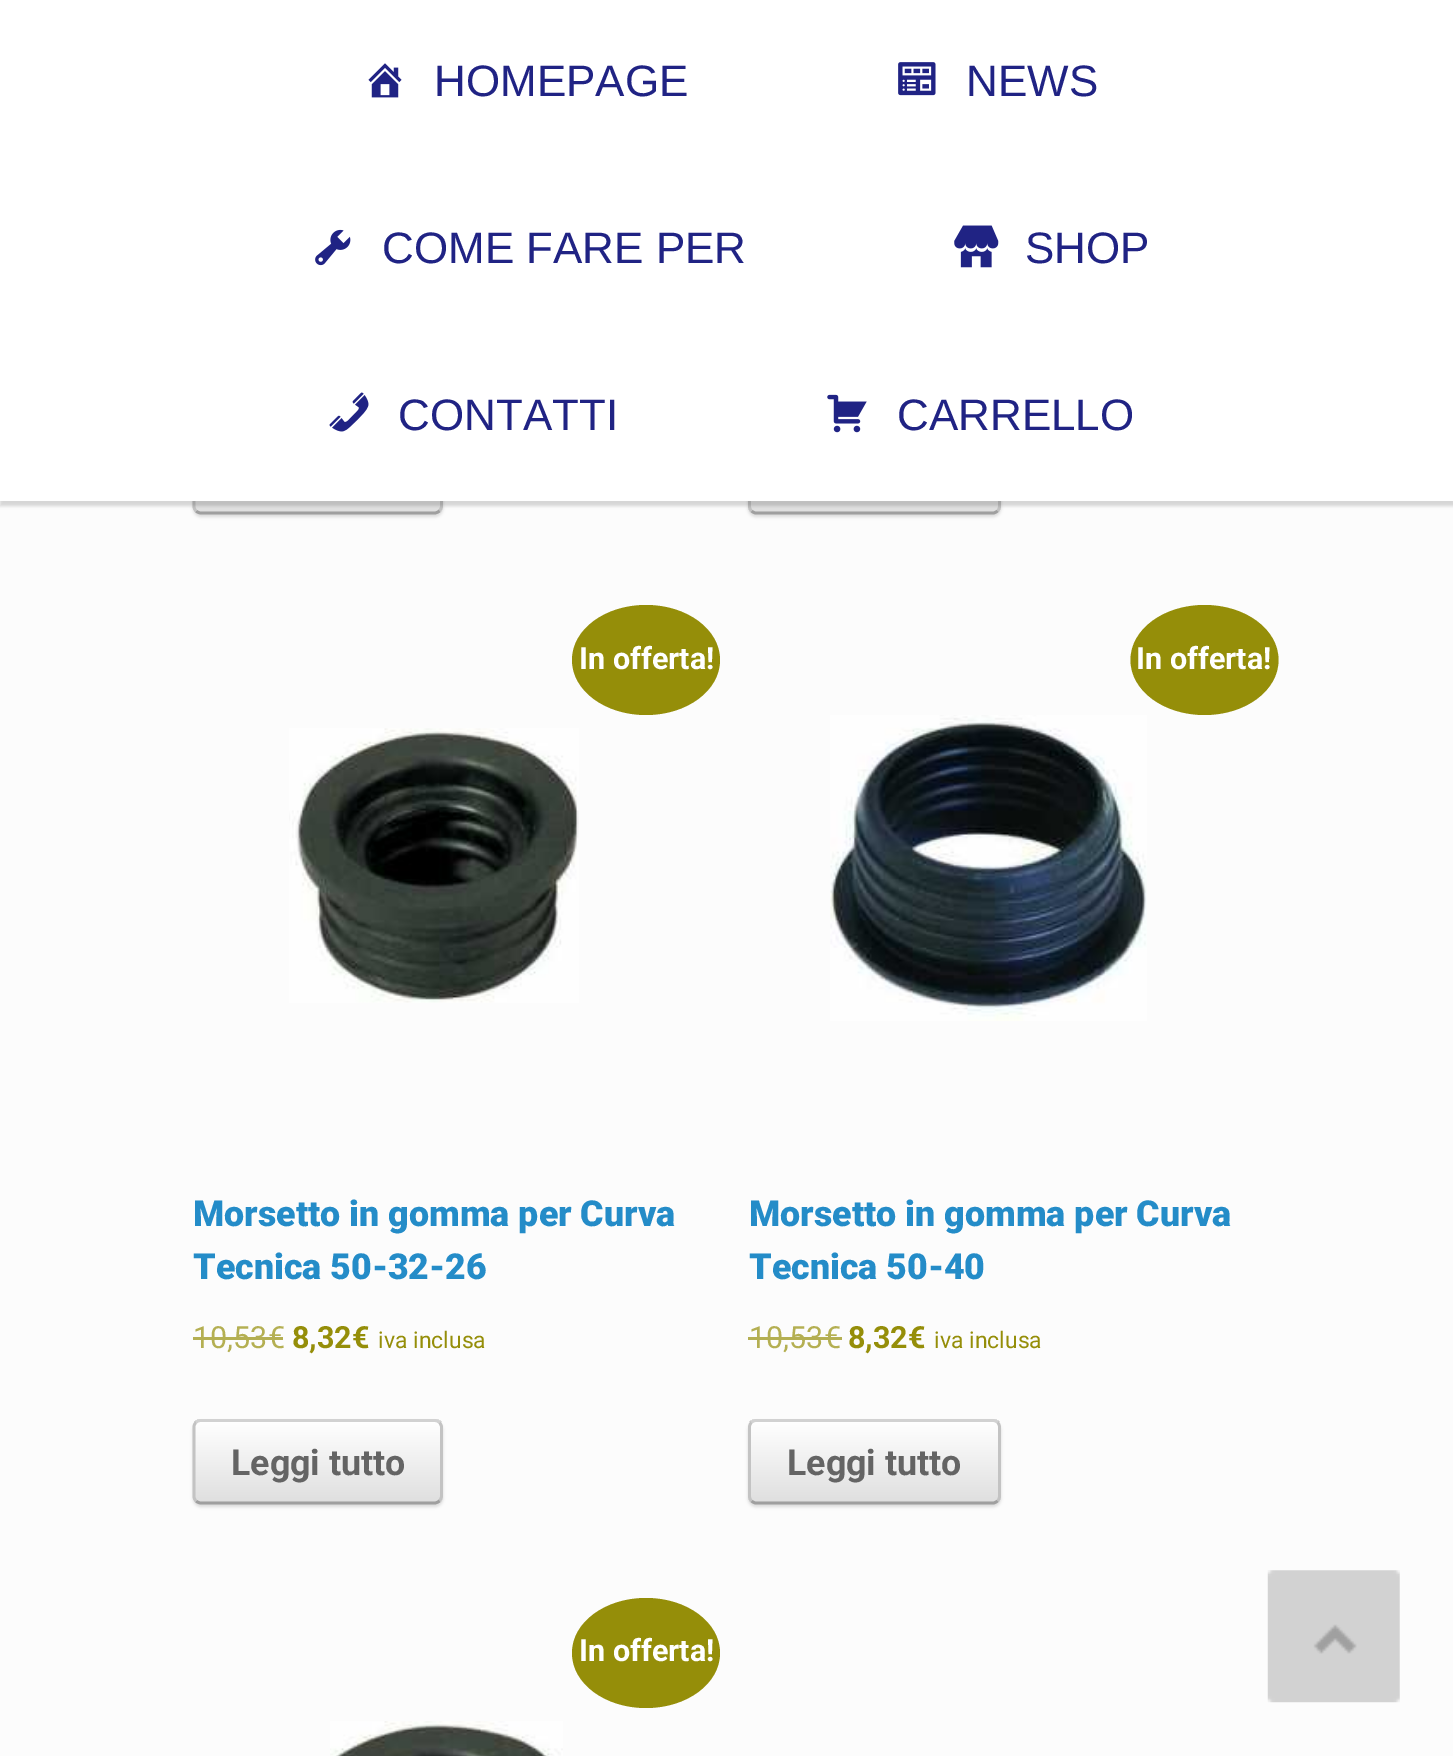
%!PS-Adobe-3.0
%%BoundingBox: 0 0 1453 1756
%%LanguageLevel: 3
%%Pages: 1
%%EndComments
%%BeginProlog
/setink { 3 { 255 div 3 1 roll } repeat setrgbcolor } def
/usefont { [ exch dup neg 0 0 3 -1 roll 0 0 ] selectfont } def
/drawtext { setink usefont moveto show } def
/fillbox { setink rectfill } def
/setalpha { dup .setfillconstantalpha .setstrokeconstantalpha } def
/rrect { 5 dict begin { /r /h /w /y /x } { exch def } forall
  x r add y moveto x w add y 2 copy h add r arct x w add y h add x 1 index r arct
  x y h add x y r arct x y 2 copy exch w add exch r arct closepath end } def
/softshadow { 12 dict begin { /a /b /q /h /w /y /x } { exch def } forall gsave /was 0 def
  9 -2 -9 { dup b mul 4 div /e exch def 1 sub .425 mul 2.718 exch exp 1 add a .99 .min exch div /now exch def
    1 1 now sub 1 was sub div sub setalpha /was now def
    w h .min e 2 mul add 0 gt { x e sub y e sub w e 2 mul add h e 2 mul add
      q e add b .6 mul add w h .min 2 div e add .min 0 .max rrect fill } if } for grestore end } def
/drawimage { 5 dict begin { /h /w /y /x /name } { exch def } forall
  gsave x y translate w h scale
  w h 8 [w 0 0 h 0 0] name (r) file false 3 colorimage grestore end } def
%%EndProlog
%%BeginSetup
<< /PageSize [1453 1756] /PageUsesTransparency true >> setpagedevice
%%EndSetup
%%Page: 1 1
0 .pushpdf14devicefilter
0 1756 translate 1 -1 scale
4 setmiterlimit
0 0 1453 1756 252 252 252 fillbox
0 0 0 setink
193 432 250 85 8 1.5 0.12 softshadow
gsave
193 429 250 85 8 rrect clip newpath
gsave 193 501 moveto 443 501 lineto 443 512 lineto 193 512 lineto closepath clip newpath
<< /ShadingType 2 /ColorSpace /DeviceRGB /Coords [195 512 195 432] /Extend [true true] /Function << /FunctionType 2 /Domain [0 1] /C0 [0.875 0.875 0.875] /C1 [1 1 1] /N 1 >> >> shfill grestore
grestore
195 195 195 setink
2.8 setlinewidth
439.5 432.5 moveto 440.5 433.5 441.5 435.5 441.5 437 curveto 441.5 506 lineto 441.5 508 440.5 509.5 439.5 511 curveto stroke
159 159 159 setink
439.5 511 moveto 438 512 436.5 513 434.5 513 curveto 201 513 lineto 199 513 197 512 196 511 curveto stroke
195 195 195 setink
196 511 moveto 194.5 509.5 194 508 194 506 curveto 194 437 lineto 194 435.5 194.5 433.5 196 432.5 curveto stroke
0 0 0 setink
748 432 253 85 8 1.5 0.12 softshadow
gsave
748 429 253 85 8 rrect clip newpath
gsave 748 501 moveto 1001 501 lineto 1001 512 lineto 748 512 lineto closepath clip newpath
<< /ShadingType 2 /ColorSpace /DeviceRGB /Coords [751 512 751 432] /Extend [true true] /Function << /FunctionType 2 /Domain [0 1] /C0 [0.875 0.875 0.875] /C1 [1 1 1] /N 1 >> >> shfill grestore
grestore
195 195 195 setink
997.5 432.5 moveto 999 433.5 999.5 435.5 999.5 437 curveto 999.5 506 lineto 999.5 508 999 509.5 997.5 511 curveto stroke
159 159 159 setink
997.5 511 moveto 996.5 512 994.5 513 993 513 curveto 756 513 lineto 754.5 513 752.5 512 751.5 511 curveto stroke
195 195 195 setink
751.5 511 moveto 750 509.5 749.5 508 749.5 506 curveto 749.5 437 lineto 749.5 435.5 750 433.5 751.5 432.5 curveto stroke
0 0 0 setink
0 6 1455 500 0 1.5 0.15 softshadow
0 0 1453 501 255 255 255 fillbox
(assets/img1.rgb) 368 63 34 35 drawimage
(HOMEPAGE) 434 96 /LiberationSans-Regular 44 32 35 132 drawtext
(assets/img2.rgb) 898 62 38 34 drawimage
(NEWS) 966 96 /LiberationSans-Regular 44 32 35 132 drawtext
(assets/img3.rgb) 315 229 36 37 drawimage
(COME FARE PER) 382 263 /LiberationSans-Regular 44 32 35 132 drawtext
(assets/img4.rgb) 954 225 45 43 drawimage
(SHOP) 1025 263 /LiberationSans-Regular 44 32 35 132 drawtext
(assets/img5.rgb) 329 392 40 40 drawimage
(CONTATTI) 398 430 /LiberationSans-Regular 44 32 35 132 drawtext
(assets/img6.rgb) 827 394 40 39 drawimage
(CARRELLO) 897 430 /LiberationSans-Regular 44 32 35 132 drawtext
149 142 9 setink
646 605 moveto 687 605 720 629.5 720 660 curveto 720 690.5 687 715 646 715 curveto 605 715 572 690.5 572 660 curveto 572 629.5 605 605 646 605 curveto closepath fill
(In offerta!) 579 669 /Roboto-Bold 30.5 255 255 255 drawtext
(assets/img7.rgb) 289 728 290 275 drawimage
(Morsetto in gomma per Curva) 193 1226 /Roboto-Black 35.75 36 140 200 drawtext
(Tecnica 50-32-26) 193 1279 /Roboto-Black 35.75 36 140 200 drawtext
(10,53€) 193 1348 /Roboto-Regular 30.5 180 175 82 drawtext
193 1337 90 3 180 175 82 fillbox
(8,32€) 292 1348 /Roboto-Bold 30.5 149 142 9 drawtext
(iva inclusa) 378 1348 /Roboto-Regular 23 149 142 9 drawtext
0 0 0 setink
193 1422 250 85 8 1.5 0.12 softshadow
gsave
193 1419 250 85 8 rrect clip newpath
gsave 193 1419 moveto 443 1419 lineto 443 1422 lineto 193 1422 lineto closepath clip newpath
<< /ShadingType 2 /ColorSpace /DeviceRGB /Coords [195 1422 195 1342] /Extend [true true] /Function << /FunctionType 2 /Domain [0 1] /C0 [0.875 0.875 0.875] /C1 [1 1 1] /N 1 >> >> shfill grestore
gsave 193 1422 moveto 443 1422 lineto 443 1502 lineto 193 1502 lineto closepath clip newpath
<< /ShadingType 2 /ColorSpace /DeviceRGB /Coords [195 1502 195 1422] /Extend [true true] /Function << /FunctionType 2 /Domain [0 1] /C0 [0.875 0.875 0.875] /C1 [1 1 1] /N 1 >> >> shfill grestore
grestore
210 210 210 setink
196 1422.5 moveto 197 1421 199 1420.5 201 1420.5 curveto 434.5 1420.5 lineto 436.5 1420.5 438 1421 439.5 1422.5 curveto stroke
195 195 195 setink
439.5 1422.5 moveto 440.5 1423.5 441.5 1425.5 441.5 1427 curveto 441.5 1496 lineto 441.5 1498 440.5 1499.5 439.5 1501 curveto stroke
159 159 159 setink
439.5 1501 moveto 438 1502 436.5 1503 434.5 1503 curveto 201 1503 lineto 199 1503 197 1502 196 1501 curveto stroke
195 195 195 setink
196 1501 moveto 194.5 1499.5 194 1498 194 1496 curveto 194 1427 lineto 194 1425.5 194.5 1423.5 196 1422.5 curveto stroke
(Leggi tutto) 231 1475 /Roboto-Bold 35.75 100 100 100 drawtext
149 142 9 setink
1204.5 605 moveto 1245.5 605 1278.5 629.5 1278.5 660 curveto 1278.5 690.5 1245.5 715 1204.5 715 curveto 1163.5 715 1130.5 690.5 1130.5 660 curveto 1130.5 629.5 1163.5 605 1204.5 605 curveto closepath fill
(In offerta!) 1136 669 /Roboto-Bold 30.5 255 255 255 drawtext
(assets/img8.rgb) 830 715 317 306 drawimage
(Morsetto in gomma per Curva) 749 1226 /Roboto-Black 35.75 36 140 200 drawtext
(Tecnica 50-40) 749 1279 /Roboto-Black 35.75 36 140 200 drawtext
(10,53€) 749 1348 /Roboto-Regular 30.5 180 175 82 drawtext
748 1337 94 3 180 175 82 fillbox
(8,32€) 848 1348 /Roboto-Bold 30.5 149 142 9 drawtext
(iva inclusa) 934 1348 /Roboto-Regular 23 149 142 9 drawtext
0 0 0 setink
748 1422 253 85 8 1.5 0.12 softshadow
gsave
748 1419 253 85 8 rrect clip newpath
gsave 748 1419 moveto 1001 1419 lineto 1001 1422 lineto 748 1422 lineto closepath clip newpath
<< /ShadingType 2 /ColorSpace /DeviceRGB /Coords [751 1422 751 1342] /Extend [true true] /Function << /FunctionType 2 /Domain [0 1] /C0 [0.875 0.875 0.875] /C1 [1 1 1] /N 1 >> >> shfill grestore
gsave 748 1422 moveto 1001 1422 lineto 1001 1502 lineto 748 1502 lineto closepath clip newpath
<< /ShadingType 2 /ColorSpace /DeviceRGB /Coords [751 1502 751 1422] /Extend [true true] /Function << /FunctionType 2 /Domain [0 1] /C0 [0.875 0.875 0.875] /C1 [1 1 1] /N 1 >> >> shfill grestore
grestore
210 210 210 setink
751.5 1422.5 moveto 752.5 1421 754.5 1420.5 756 1420.5 curveto 993 1420.5 lineto 994.5 1420.5 996.5 1421 997.5 1422.5 curveto stroke
195 195 195 setink
997.5 1422.5 moveto 999 1423.5 999.5 1425.5 999.5 1427 curveto 999.5 1496 lineto 999.5 1498 999 1499.5 997.5 1501 curveto stroke
159 159 159 setink
997.5 1501 moveto 996.5 1502 994.5 1503 993 1503 curveto 756 1503 lineto 754.5 1503 752.5 1502 751.5 1501 curveto stroke
195 195 195 setink
751.5 1501 moveto 750 1499.5 749.5 1498 749.5 1496 curveto 749.5 1427 lineto 749.5 1425.5 750 1423.5 751.5 1422.5 curveto stroke
(Leggi tutto) 787 1475 /Roboto-Bold 35.75 100 100 100 drawtext
149 142 9 setink
646 1598 moveto 687 1598 720 1622.5 720 1653 curveto 720 1683.5 687 1708 646 1708 curveto 605 1708 572 1683.5 572 1653 curveto 572 1622.5 605 1598 646 1598 curveto closepath fill
(In offerta!) 579 1661 /Roboto-Bold 30.5 255 255 255 drawtext
(assets/img9.rgb) 330 1721 233 35 drawimage
(assets/img10.rgb) 1267 1570 133 133 drawimage
.poppdf14devicefilter showpage
%%EOF
